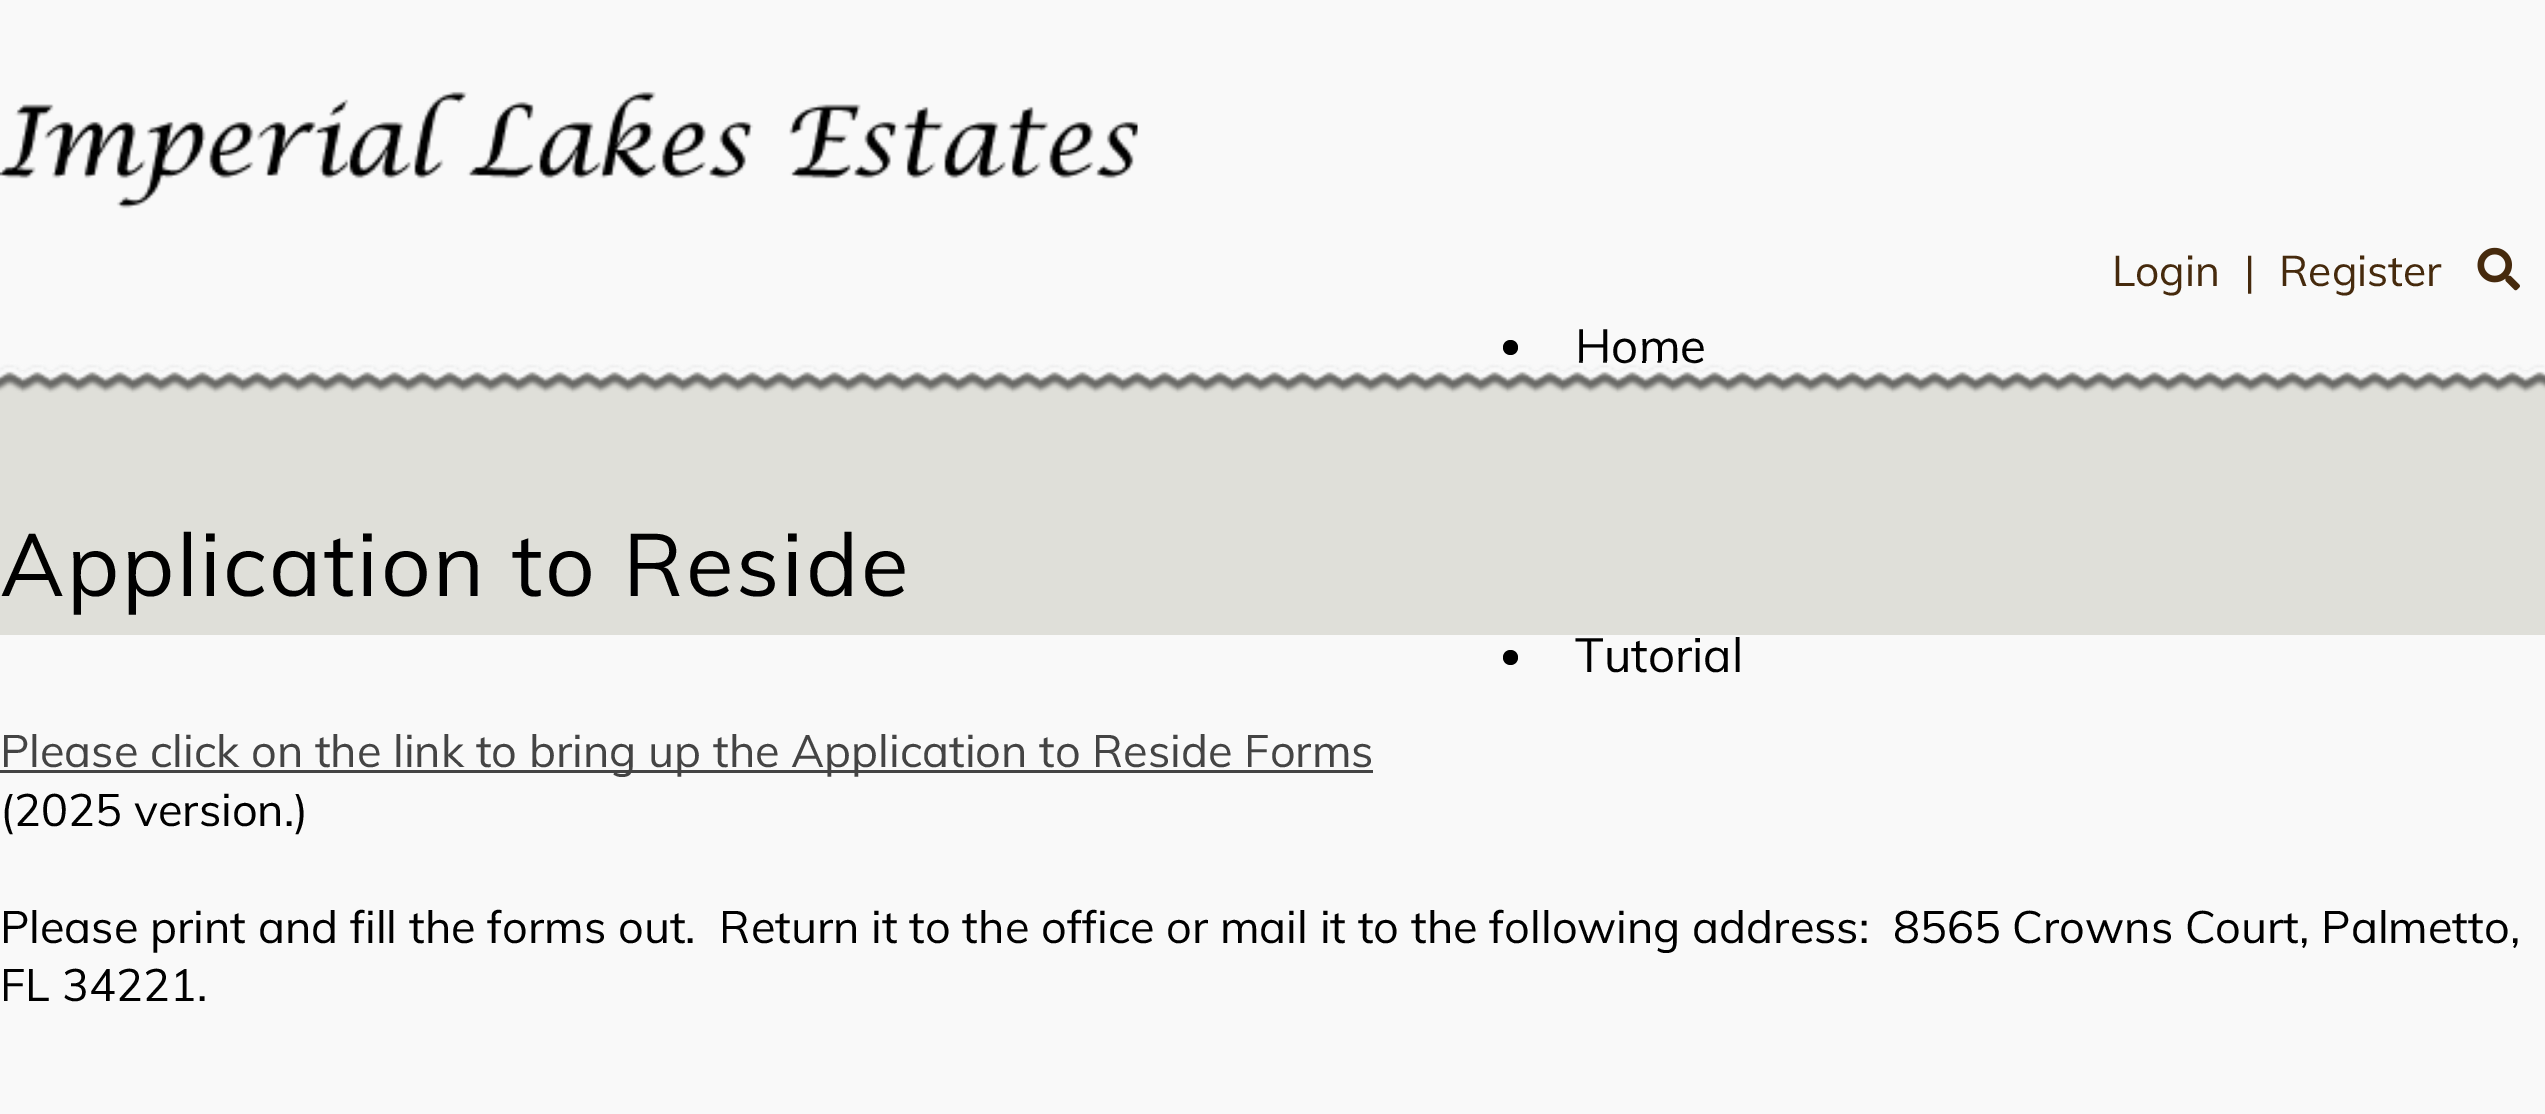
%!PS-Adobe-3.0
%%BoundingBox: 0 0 2545 1114
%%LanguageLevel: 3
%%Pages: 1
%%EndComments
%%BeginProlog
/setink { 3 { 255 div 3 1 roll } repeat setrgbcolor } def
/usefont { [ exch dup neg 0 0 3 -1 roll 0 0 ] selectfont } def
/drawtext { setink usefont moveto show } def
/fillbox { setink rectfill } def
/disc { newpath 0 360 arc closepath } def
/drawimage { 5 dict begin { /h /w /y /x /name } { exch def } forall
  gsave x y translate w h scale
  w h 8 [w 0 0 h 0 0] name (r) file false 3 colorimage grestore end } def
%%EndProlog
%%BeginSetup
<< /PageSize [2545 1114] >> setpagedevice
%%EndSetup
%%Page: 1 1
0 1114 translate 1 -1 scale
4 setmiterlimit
0 0 2545 1114 249 249 249 fillbox
0 370 2545 265 223 223 217 fillbox
(Home) 1575 363 /Muli-Regular 47.5 0 0 0 drawtext
(assets/img1.rgb) 0 361 2545 32 drawimage
/Muli-Regular 87.5 usefont
0 596 moveto 2.5 0 (Application to Reside) ashow
(assets/img2.rgb) 0 91 1138 118 drawimage
(Login) 2112 286 /Muli-Regular 42.5 70 42 13 drawtext
(|) 2244 286 /Muli-Regular 42.5 70 42 13 drawtext
(Register) 2279 286 /Muli-Regular 42.5 70 42 13 drawtext
(assets/img3.rgb) 2477 247 43 44 drawimage
0 0 0 setink
1510.5 347.5 7.5 disc fill
1510.5 657.5 7.5 disc fill
(Tutorial) 1575 672 /Muli-Regular 47.5 0 0 0 drawtext
0 770 1373 3 68 68 68 fillbox
(Please click on the link to bring up the Application to Reside Forms) 0 767 /Muli-Regular 45 68 68 68 drawtext
(\(2025 version.\)) 0 826 /Muli-Regular 45 0 0 0 drawtext
(Please print and fill the forms out.  Return it to the office or mail it to the following address:  8565 Crowns Court, Palmetto,) 0 943 /Muli-Regular 45 0 0 0 drawtext
(FL 34221.) 0 1001 /Muli-Regular 45 0 0 0 drawtext
showpage
%%EOF
